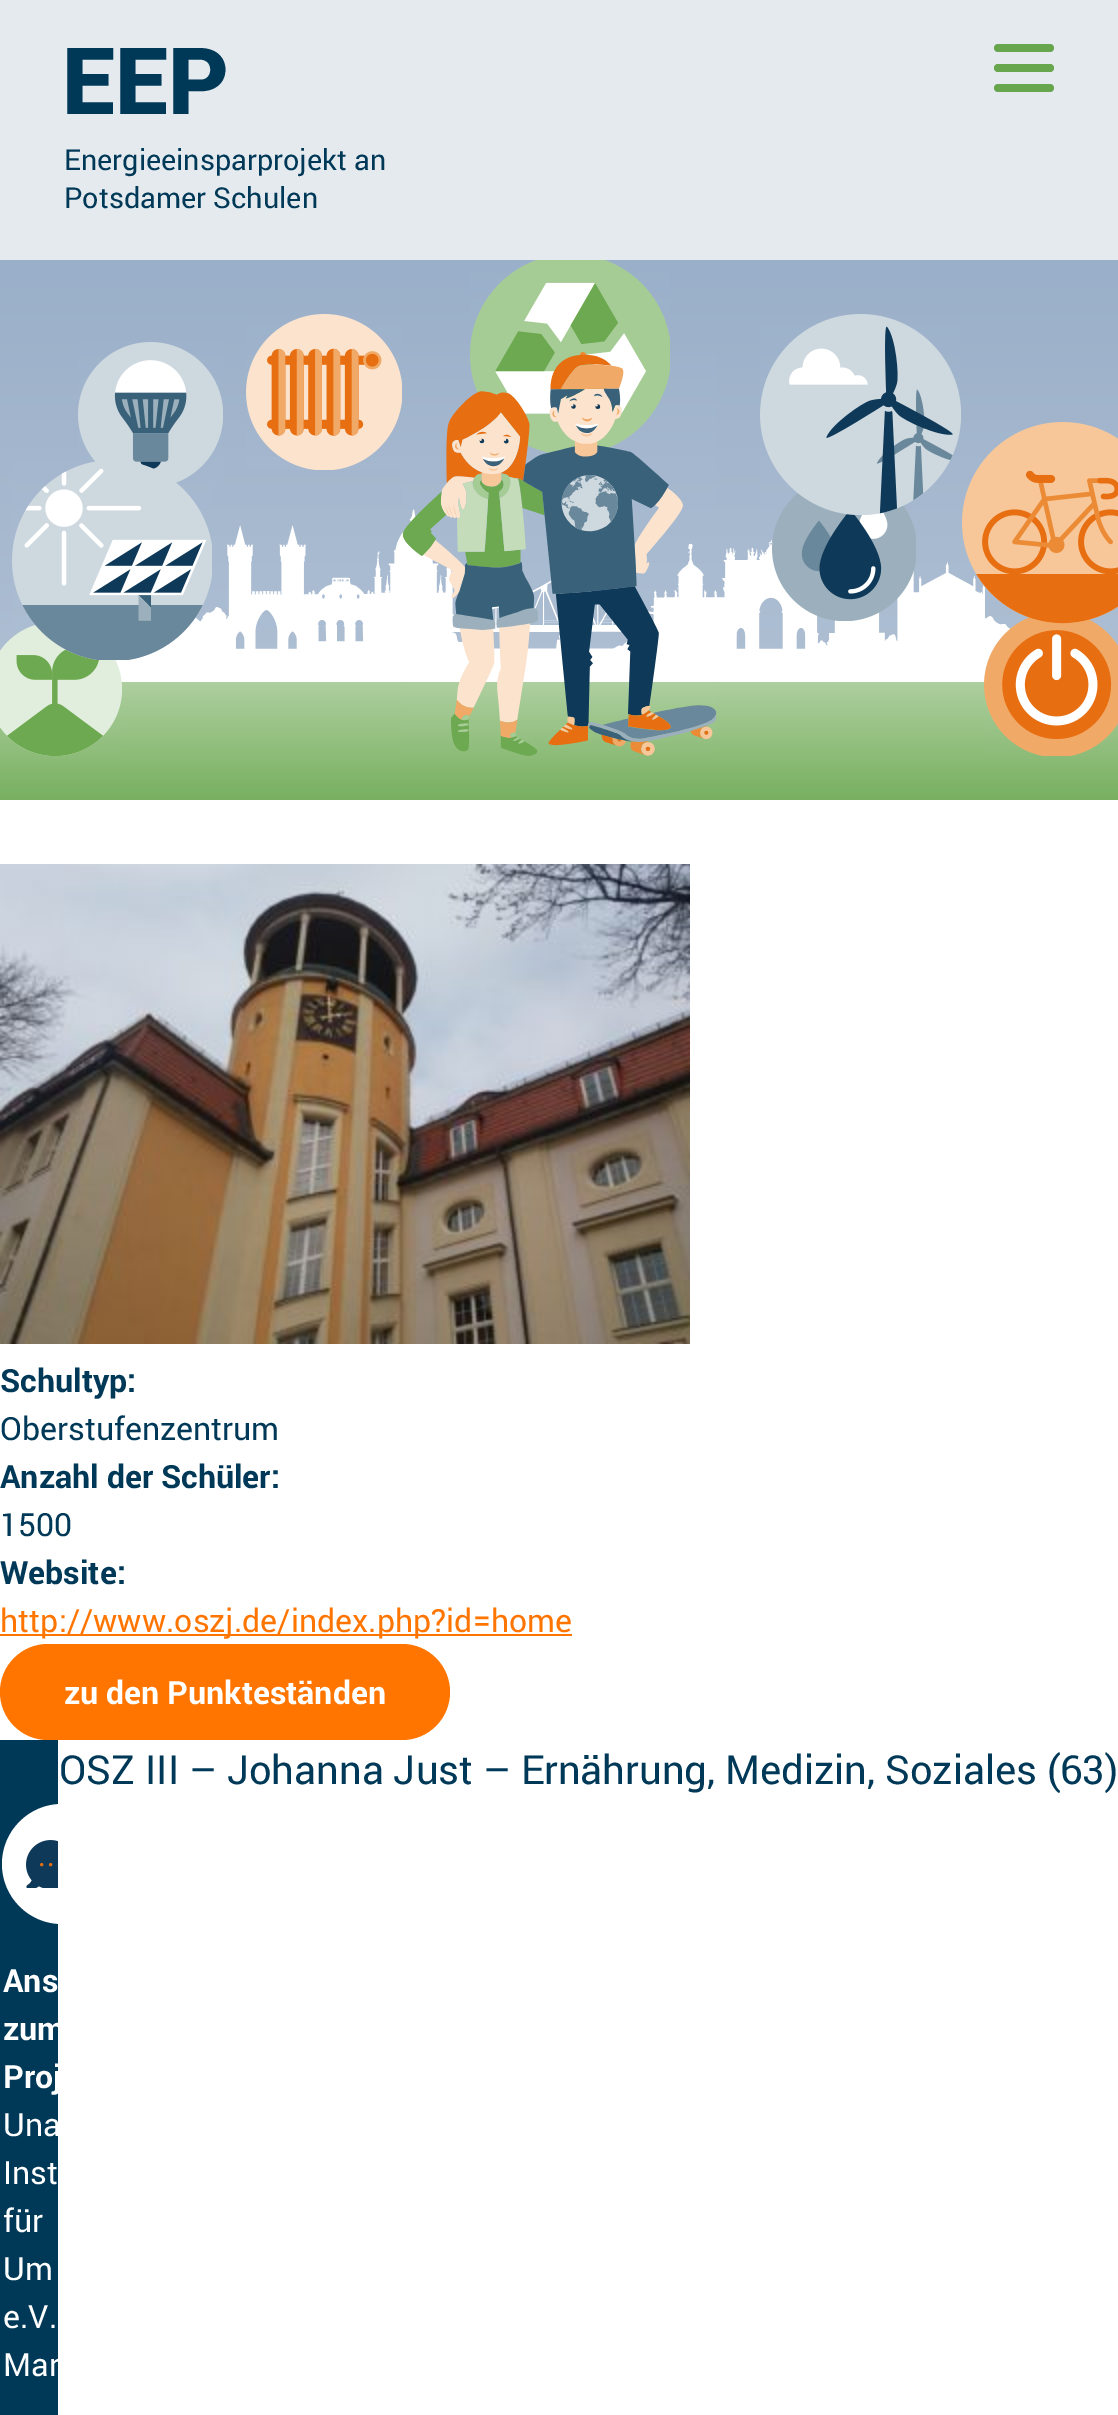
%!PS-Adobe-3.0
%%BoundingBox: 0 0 1118 2415
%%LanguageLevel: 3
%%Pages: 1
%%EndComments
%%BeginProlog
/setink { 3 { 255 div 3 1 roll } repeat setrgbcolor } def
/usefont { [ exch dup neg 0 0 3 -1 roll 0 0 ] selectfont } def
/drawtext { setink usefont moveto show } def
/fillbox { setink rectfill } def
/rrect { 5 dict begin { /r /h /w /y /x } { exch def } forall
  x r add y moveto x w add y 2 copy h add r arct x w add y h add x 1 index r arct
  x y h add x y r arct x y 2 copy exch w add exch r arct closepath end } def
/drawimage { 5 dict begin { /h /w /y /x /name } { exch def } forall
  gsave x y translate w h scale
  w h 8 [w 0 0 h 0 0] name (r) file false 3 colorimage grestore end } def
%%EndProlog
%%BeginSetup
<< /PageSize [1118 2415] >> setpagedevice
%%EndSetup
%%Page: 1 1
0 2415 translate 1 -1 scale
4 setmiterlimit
0 0 1118 2415 255 255 255 fillbox
0 0 1118 260 229 234 238 fillbox
(EEP) 62 114 /Roboto-Black 93 0 57 88 drawtext
(Energieeinsparprojekt an) 64 170 /Roboto-Regular 28.75 0 57 88 drawtext
(Potsdamer Schulen) 64 208 /Roboto-Regular 28.75 0 57 88 drawtext
104 166 78 setink
994 64 60 8 4 rrect fill
994 44 60 8 4 rrect fill
994 84 60 8 4 rrect fill
gsave 0 260 moveto 1118 260 lineto 1118 800 lineto 0 800 lineto closepath clip newpath
<< /ShadingType 2 /ColorSpace /DeviceRGB /Coords [559 260 559 800] /Extend [true true] /Function << /FunctionType 3 /Domain [0 1] /Functions [<< /FunctionType 2 /Domain [0 1] /C0 [0.604 0.686 0.788] /C1 [0.682 0.749 0.827] /N 1 >> << /FunctionType 2 /Domain [0 1] /C0 [0.682 0.812 0.627] /C1 [0.471 0.69 0.376] /N 1 >>] /Bounds [0.78] /Encode [0 1 0 1] >> >> shfill grestore
(assets/img1.rgb) 78 342 145 141 drawimage
(assets/img2.rgb) 246 314 156 156 drawimage
(assets/img3.rgb) 470 260 200 193 drawimage
(assets/img10.rgb) 115 509 896 173 drawimage
(assets/img7.rgb) 772 493 144 128 drawimage
(assets/img4.rgb) 760 314 201 201 drawimage
(assets/img9.rgb) 0 625 122 131 drawimage
(assets/img5.rgb) 12 461 200 199 drawimage
(assets/img6.rgb) 402 352 315 404 drawimage
(assets/img11.rgb) 984 617 134 139 drawimage
(assets/img8.rgb) 962 422 156 202 drawimage
(assets/img12.rgb) 0 864 690 480 drawimage
(Schultyp:) 0 1392 /Roboto-Bold 32 0 57 88 drawtext
(Oberstufenzentrum) 0 1440 /Roboto-Regular 32 0 57 88 drawtext
(Anzahl der Schüler:) 0 1488 /Roboto-Bold 32 0 57 88 drawtext
(1500) 0 1536 /Roboto-Regular 32 0 57 88 drawtext
(Website:) 0 1584 /Roboto-Bold 32 0 57 88 drawtext
0 1634 572 2 255 117 0 fillbox
(http://www.oszj.de/index.php?id=home) 0 1632 /Roboto-Regular 32 255 117 0 drawtext
0 1644 450 96 48 rrect fill
(zu den Punkteständen) 64 1704 /Roboto-Bold 32 255 255 255 drawtext
(OSZ III – Johanna Just – Ernährung, Medizin, Soziales \(63\)) 59 1784 /Roboto-Regular 40 0 57 88 drawtext
0 1740 58 675 0 57 88 fillbox
255 255 255 setink
62 1804 moveto 58 1804 lineto 58 1924 lineto 62 1924 lineto 29 1924 2 1897 2 1864 curveto 2 1831 29 1804 62 1804 curveto closepath fill
(assets/img13.rgb) 26 1840 32 48 drawimage
(Ans) 3 1992 /Roboto-Bold 32 255 255 255 drawtext
gsave
0 1740 58 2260 rectclip
(zum) 3 2040 /Roboto-Bold 32 255 255 255 drawtext
(Proj) 3 2088 /Roboto-Bold 32 255 255 255 drawtext
(Una) 3 2136 /Roboto-Regular 32 255 255 255 drawtext
grestore
(Inst) 3 2184 /Roboto-Regular 32 255 255 255 drawtext
(für) 3 2232 /Roboto-Regular 32 255 255 255 drawtext
(Um) 3 2280 /Roboto-Regular 32 255 255 255 drawtext
(e.V.) 3 2328 /Roboto-Regular 32 255 255 255 drawtext
gsave
0 1740 58 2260 rectclip
(Mar) 3 2376 /Roboto-Regular 32 255 255 255 drawtext
grestore
showpage
%%EOF
